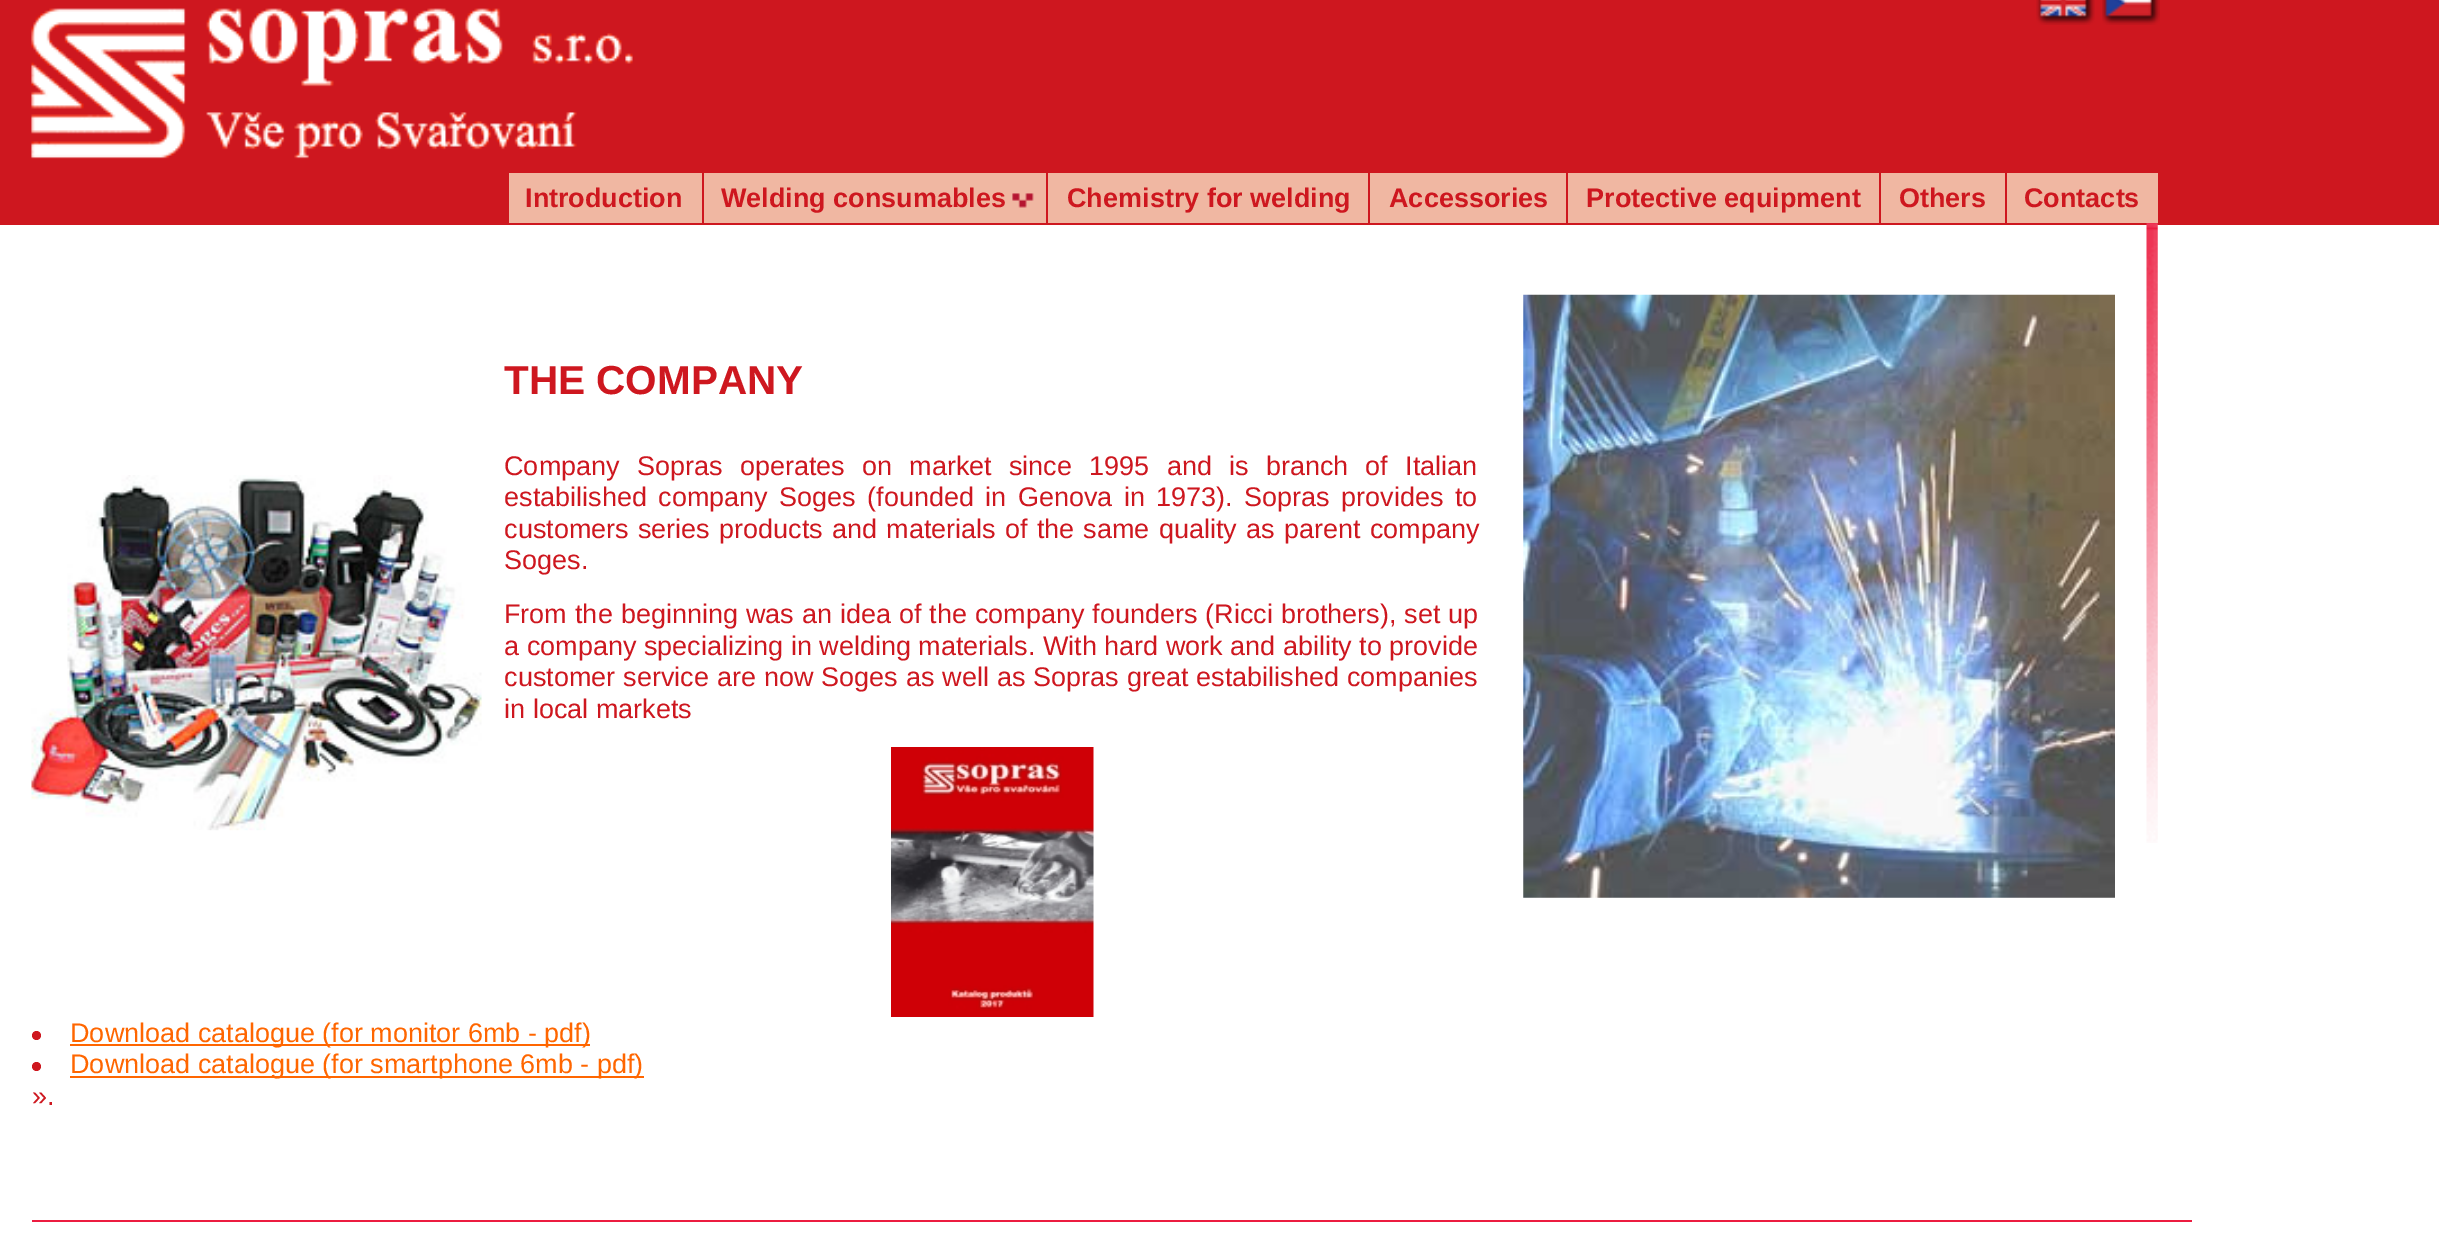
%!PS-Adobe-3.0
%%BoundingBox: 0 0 2439 1243
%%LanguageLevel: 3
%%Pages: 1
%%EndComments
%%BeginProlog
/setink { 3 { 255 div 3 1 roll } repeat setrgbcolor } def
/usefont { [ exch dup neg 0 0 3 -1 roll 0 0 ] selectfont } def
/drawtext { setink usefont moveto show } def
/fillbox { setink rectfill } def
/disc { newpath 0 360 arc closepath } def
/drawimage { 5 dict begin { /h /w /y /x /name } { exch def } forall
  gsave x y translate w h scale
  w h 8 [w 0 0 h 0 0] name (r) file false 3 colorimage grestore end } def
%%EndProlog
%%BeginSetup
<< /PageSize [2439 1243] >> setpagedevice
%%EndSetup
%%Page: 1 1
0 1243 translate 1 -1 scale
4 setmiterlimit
0 0 2439 1243 255 255 255 fillbox
0 0 2439 225 206 23 31 fillbox
(assets/img1.rgb) 31 8 155 151 drawimage
(assets/img2.rgb) 206 8 427 151 drawimage
(assets/img3.rgb) 2036 0 59 25 drawimage
(assets/img4.rgb) 2102 0 58 25 drawimage
509 173 193 50 240 183 162 fillbox
(Introduction) 525 207 /LiberationSans-Bold 27 206 23 31 drawtext
704 173 664 50 240 183 162 fillbox
(assets/img5.rgb) 1012 193 22 15 drawimage
1046 173 2 50 206 23 31 fillbox
(Welding consumables) 721 207 /LiberationSans-Bold 27 206 23 31 drawtext
(Chemistry for welding) 1067 207 /LiberationSans-Bold 27 206 23 31 drawtext
1370 173 196 50 240 183 162 fillbox
(Accessories) 1389 207 /LiberationSans-Bold 27 206 23 31 drawtext
1568 173 311 50 240 183 162 fillbox
(Protective equipment) 1586 207 /LiberationSans-Bold 27 206 23 31 drawtext
1881 173 124 50 240 183 162 fillbox
(Others) 1899 207 /LiberationSans-Bold 27 206 23 31 drawtext
2007 173 151 50 240 183 162 fillbox
(Contacts) 2024 207 /LiberationSans-Bold 27 206 23 31 drawtext
(THE COMPANY) 504 394 /LiberationSans-Bold 40.5 206 23 31 drawtext
(assets/img6.rgb) 1523 294 592 604 drawimage
(assets/img7.rgb) 31 475 451 356 drawimage
/LiberationSans-Regular 27 usefont
504 475 moveto 9.75 0 32 (Company Sopras operates on market since 1995 and is branch of Italian) widthshow
504 506 moveto 4 0 32 (estabilished company Soges \(founded in Genova in 1973\). Sopras provides to) widthshow
504 538 moveto 1.75 0 32 (customers series products and materials of the same quality as parent company) widthshow
(Soges.) 504 569 /LiberationSans-Regular 27 206 23 31 drawtext
504 623 moveto 0.5 0 32 (From the beginning was an idea of the company founders \(Ricci brothers\), set up) widthshow
(a company specializing in welding materials. With hard work and ability to provide) 504 655 /LiberationSans-Regular 27 206 23 31 drawtext
504 686 moveto 0.5 0 32 (customer service are now Soges as well as Sopras great estabilished companies) widthshow
(in local markets) 504 718 /LiberationSans-Regular 27 206 23 31 drawtext
(assets/img8.rgb) 891 747 203 270 drawimage
36.5 1035.5 4.5 disc fill
70 1044 520 2 255 102 0 fillbox
(Download catalogue \(for monitor 6mb - pdf\)) 70 1042 /LiberationSans-Regular 27 255 102 0 drawtext
206 23 31 setink
36.5 1066.5 4.5 disc fill
70 1076 574 2 255 102 0 fillbox
(Download catalogue \(for smartphone 6mb - pdf\)) 70 1073 /LiberationSans-Regular 27 255 102 0 drawtext
(».) 32 1105 /LiberationSans-Regular 27 206 23 31 drawtext
32 1220 2160 2 236 28 64 fillbox
(assets/img9.rgb) 2146 223 12 620 drawimage
showpage
%%EOF
